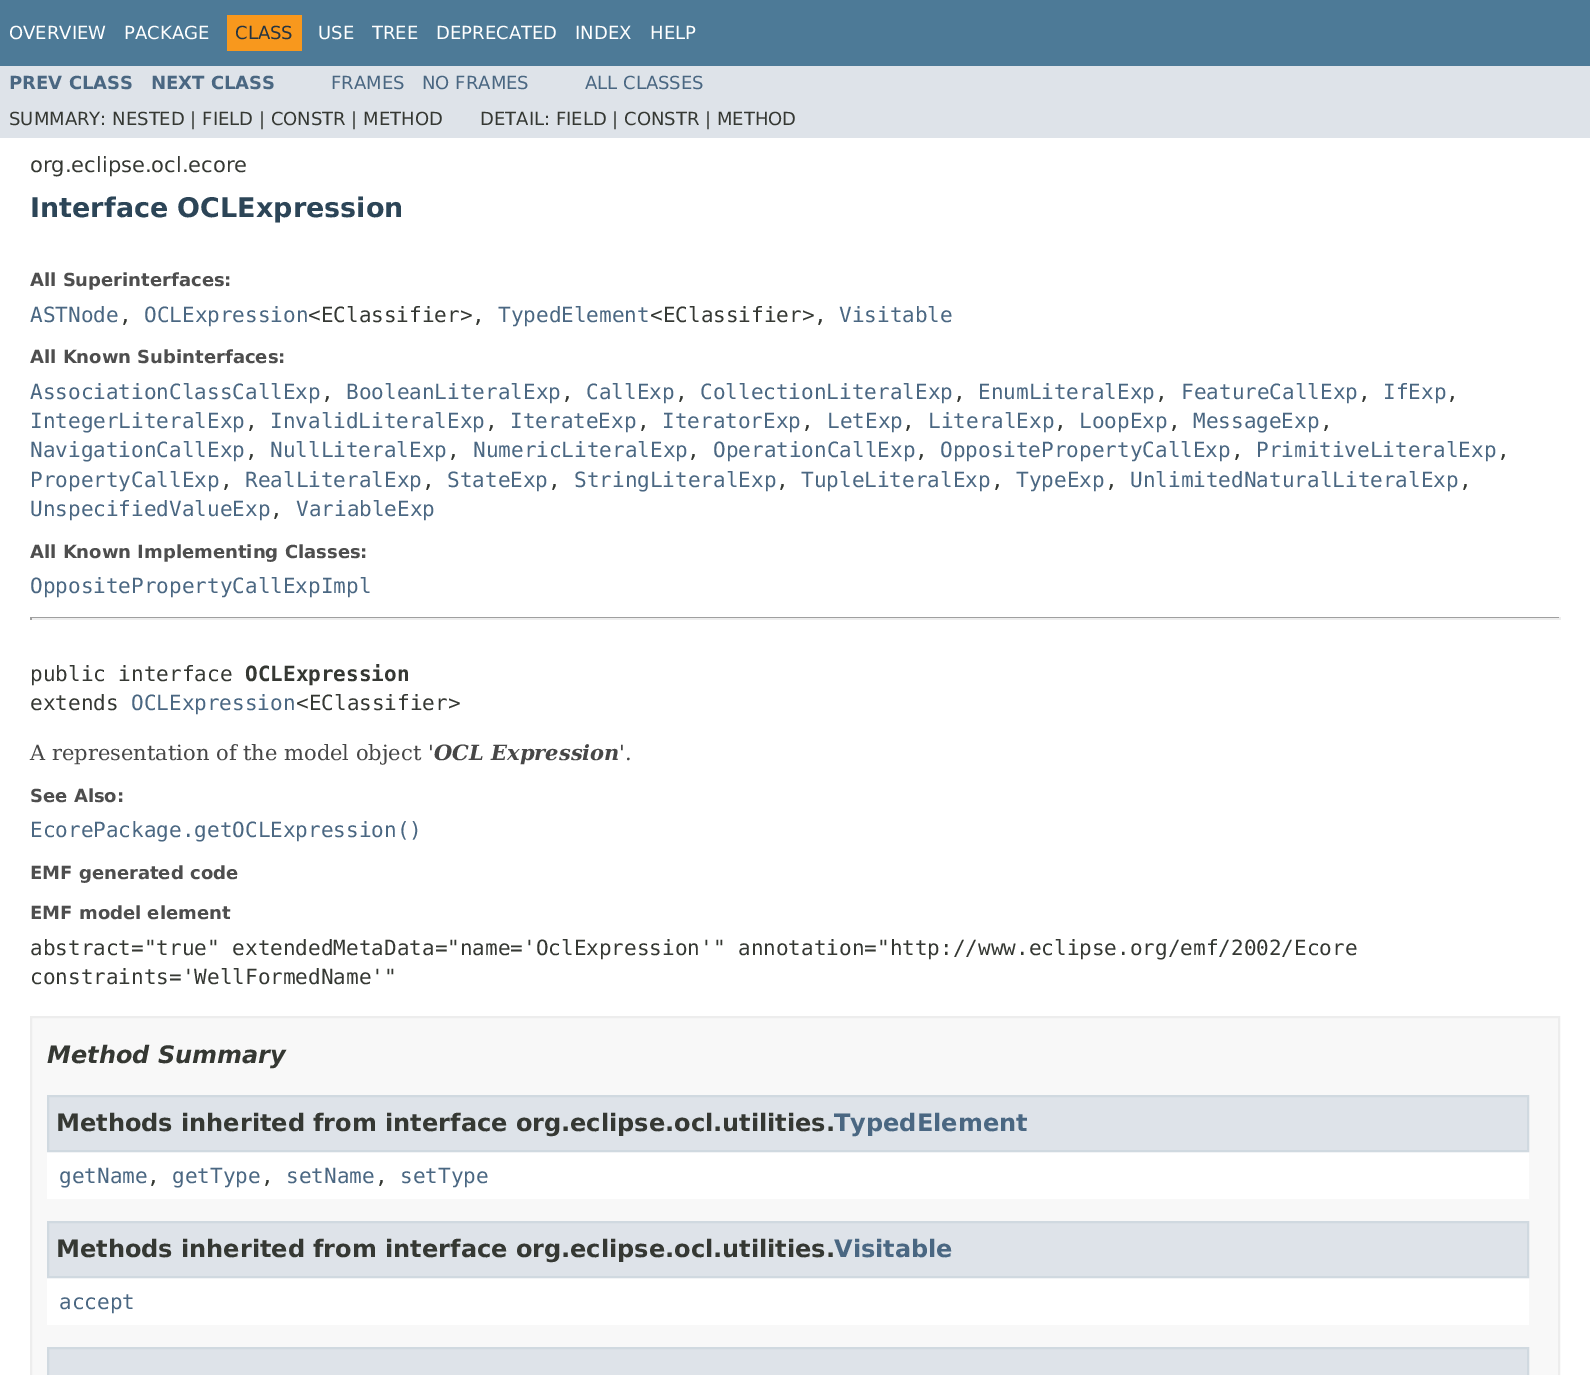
%!PS-Adobe-3.0
%%BoundingBox: 0 0 1590 1375
%%LanguageLevel: 3
%%Pages: 1
%%EndComments
%%BeginProlog
/setink { 3 { 255 div 3 1 roll } repeat setrgbcolor } def
/usefont { [ exch dup neg 0 0 3 -1 roll 0 0 ] selectfont } def
/drawtext { setink usefont moveto show } def
/fillbox { setink rectfill } def
%%EndProlog
%%BeginSetup
<< /PageSize [1590 1375] >> setpagedevice
%%EndSetup
%%Page: 1 1
0 1375 translate 1 -1 scale
4 setmiterlimit
0 0 1590 1375 255 255 255 fillbox
0 0 1590 66 77 122 151 fillbox
(OVERVIEW) 9 39 /DejaVuSans-Regular 18 255 255 255 drawtext
(PACKAGE) 124 39 /DejaVuSans-Regular 18 255 255 255 drawtext
227 15 75 36 248 152 29 fillbox
(CLASS) 235 39 /DejaVuSans-Regular 18 37 52 65 drawtext
(USE) 318 39 /DejaVuSans-Regular 18 255 255 255 drawtext
(TREE) 372 39 /DejaVuSans-Regular 18 255 255 255 drawtext
(DEPRECATED) 436 39 /DejaVuSans-Regular 18 255 255 255 drawtext
(INDEX) 575 39 /DejaVuSans-Regular 18 255 255 255 drawtext
(HELP) 650 39 /DejaVuSans-Regular 18 255 255 255 drawtext
0 66 1590 72 222 227 233 fillbox
(PREV CLASS) 9 89 /DejaVuSans-Bold 18 74 103 130 drawtext
(NEXT CLASS) 151 89 /DejaVuSans-Bold 18 74 103 130 drawtext
(FRAMES) 331 89 /DejaVuSans-Regular 18 74 103 130 drawtext
(NO FRAMES) 422 89 /DejaVuSans-Regular 18 74 103 130 drawtext
(ALL CLASSES) 585 89 /DejaVuSans-Regular 18 74 103 130 drawtext
(SUMMARY: NESTED | FIELD | CONSTR | METHOD) 9 125 /DejaVuSans-Regular 18 53 56 51 drawtext
(DETAIL: FIELD | CONSTR | METHOD) 480 125 /DejaVuSans-Regular 18 53 56 51 drawtext
(org.eclipse.ocl.ecore) 30 172 /DejaVuSans-Regular 21 53 56 51 drawtext
(Interface OCLExpression) 30 217 /DejaVuSans-Bold 27 44 69 87 drawtext
(All Superinterfaces:) 30 286 /DejaVuSans-Bold 18 78 78 78 drawtext
(ASTNode) 30 322 /DejaVuSansMono-Regular 21 74 103 130 drawtext
(,) 119 322 /DejaVuSansMono-Regular 21 53 56 51 drawtext
(OCLExpression) 144 322 /DejaVuSansMono-Regular 21 74 103 130 drawtext
(<EClassifier>,) 308 322 /DejaVuSansMono-Regular 21 53 56 51 drawtext
(TypedElement) 498 322 /DejaVuSansMono-Regular 21 74 103 130 drawtext
(<EClassifier>,) 650 322 /DejaVuSansMono-Regular 21 53 56 51 drawtext
(Visitable) 839 322 /DejaVuSansMono-Regular 21 74 103 130 drawtext
(All Known Subinterfaces:) 30 363 /DejaVuSans-Bold 18 78 78 78 drawtext
(AssociationClassCallExp) 30 399 /DejaVuSansMono-Regular 21 74 103 130 drawtext
(,) 321 399 /DejaVuSansMono-Regular 21 53 56 51 drawtext
(BooleanLiteralExp) 346 399 /DejaVuSansMono-Regular 21 74 103 130 drawtext
(,) 561 399 /DejaVuSansMono-Regular 21 53 56 51 drawtext
(CallExp) 586 399 /DejaVuSansMono-Regular 21 74 103 130 drawtext
(,) 675 399 /DejaVuSansMono-Regular 21 53 56 51 drawtext
(CollectionLiteralExp) 700 399 /DejaVuSansMono-Regular 21 74 103 130 drawtext
(,) 953 399 /DejaVuSansMono-Regular 21 53 56 51 drawtext
(EnumLiteralExp) 978 399 /DejaVuSansMono-Regular 21 74 103 130 drawtext
(,) 1155 399 /DejaVuSansMono-Regular 21 53 56 51 drawtext
(FeatureCallExp) 1181 399 /DejaVuSansMono-Regular 21 74 103 130 drawtext
(,) 1358 399 /DejaVuSansMono-Regular 21 53 56 51 drawtext
(IfExp) 1383 399 /DejaVuSansMono-Regular 21 74 103 130 drawtext
(,) 1446 399 /DejaVuSansMono-Regular 21 53 56 51 drawtext
(IntegerLiteralExp) 30 428 /DejaVuSansMono-Regular 21 74 103 130 drawtext
(,) 245 428 /DejaVuSansMono-Regular 21 53 56 51 drawtext
(InvalidLiteralExp) 270 428 /DejaVuSansMono-Regular 21 74 103 130 drawtext
(,) 485 428 /DejaVuSansMono-Regular 21 53 56 51 drawtext
(IterateExp) 510 428 /DejaVuSansMono-Regular 21 74 103 130 drawtext
(,) 637 428 /DejaVuSansMono-Regular 21 53 56 51 drawtext
(IteratorExp) 662 428 /DejaVuSansMono-Regular 21 74 103 130 drawtext
(,) 801 428 /DejaVuSansMono-Regular 21 53 56 51 drawtext
(LetExp) 827 428 /DejaVuSansMono-Regular 21 74 103 130 drawtext
(,) 902 428 /DejaVuSansMono-Regular 21 53 56 51 drawtext
(LiteralExp) 928 428 /DejaVuSansMono-Regular 21 74 103 130 drawtext
(,) 1054 428 /DejaVuSansMono-Regular 21 53 56 51 drawtext
(LoopExp) 1079 428 /DejaVuSansMono-Regular 21 74 103 130 drawtext
(,) 1168 428 /DejaVuSansMono-Regular 21 53 56 51 drawtext
(MessageExp) 1193 428 /DejaVuSansMono-Regular 21 74 103 130 drawtext
(,) 1320 428 /DejaVuSansMono-Regular 21 53 56 51 drawtext
(NavigationCallExp) 30 457 /DejaVuSansMono-Regular 21 74 103 130 drawtext
(,) 245 457 /DejaVuSansMono-Regular 21 53 56 51 drawtext
(NullLiteralExp) 270 457 /DejaVuSansMono-Regular 21 74 103 130 drawtext
(,) 447 457 /DejaVuSansMono-Regular 21 53 56 51 drawtext
(NumericLiteralExp) 473 457 /DejaVuSansMono-Regular 21 74 103 130 drawtext
(,) 687 457 /DejaVuSansMono-Regular 21 53 56 51 drawtext
(OperationCallExp) 713 457 /DejaVuSansMono-Regular 21 74 103 130 drawtext
(,) 915 457 /DejaVuSansMono-Regular 21 53 56 51 drawtext
(OppositePropertyCallExp) 940 457 /DejaVuSansMono-Regular 21 74 103 130 drawtext
(,) 1231 457 /DejaVuSansMono-Regular 21 53 56 51 drawtext
(PrimitiveLiteralExp) 1256 457 /DejaVuSansMono-Regular 21 74 103 130 drawtext
(,) 1497 457 /DejaVuSansMono-Regular 21 53 56 51 drawtext
(PropertyCallExp) 30 487 /DejaVuSansMono-Regular 21 74 103 130 drawtext
(,) 220 487 /DejaVuSansMono-Regular 21 53 56 51 drawtext
(RealLiteralExp) 245 487 /DejaVuSansMono-Regular 21 74 103 130 drawtext
(,) 422 487 /DejaVuSansMono-Regular 21 53 56 51 drawtext
(StateExp) 447 487 /DejaVuSansMono-Regular 21 74 103 130 drawtext
(,) 548 487 /DejaVuSansMono-Regular 21 53 56 51 drawtext
(StringLiteralExp) 574 487 /DejaVuSansMono-Regular 21 74 103 130 drawtext
(,) 776 487 /DejaVuSansMono-Regular 21 53 56 51 drawtext
(TupleLiteralExp) 801 487 /DejaVuSansMono-Regular 21 74 103 130 drawtext
(,) 991 487 /DejaVuSansMono-Regular 21 53 56 51 drawtext
(TypeExp) 1016 487 /DejaVuSansMono-Regular 21 74 103 130 drawtext
(,) 1105 487 /DejaVuSansMono-Regular 21 53 56 51 drawtext
(UnlimitedNaturalLiteralExp) 1130 487 /DejaVuSansMono-Regular 21 74 103 130 drawtext
(,) 1459 487 /DejaVuSansMono-Regular 21 53 56 51 drawtext
(UnspecifiedValueExp) 30 516 /DejaVuSansMono-Regular 21 74 103 130 drawtext
(,) 270 516 /DejaVuSansMono-Regular 21 53 56 51 drawtext
(VariableExp) 296 516 /DejaVuSansMono-Regular 21 74 103 130 drawtext
(All Known Implementing Classes:) 30 558 /DejaVuSans-Bold 18 78 78 78 drawtext
(OppositePropertyCallExpImpl) 30 593 /DejaVuSansMono-Regular 21 74 103 130 drawtext
30 617 1530 1 159 159 159 fillbox
1559 617 2 3 238 238 238 fillbox
30 618 1530 2 238 238 238 fillbox
30 617 2 3 159 159 159 fillbox
(public interface) 30 681 /DejaVuSansMono-Regular 21 53 56 51 drawtext
(OCLExpression) 245 681 /DejaVuSansMono-Bold 21 53 56 51 drawtext
(extends) 30 710 /DejaVuSansMono-Regular 21 53 56 51 drawtext
(OCLExpression) 131 710 /DejaVuSansMono-Regular 21 74 103 130 drawtext
(<EClassifier>) 296 710 /DejaVuSansMono-Regular 21 53 56 51 drawtext
(A representation of the model object ') 30 760 /DejaVuSerif-Regular 21 71 71 71 drawtext
(OCL Expression) 434 760 /DejaVuSerif-BoldItalic 21 71 71 71 drawtext
('.) 619 760 /DejaVuSerif-Regular 21 71 71 71 drawtext
(See Also:) 30 802 /DejaVuSans-Bold 18 78 78 78 drawtext
(EcorePackage.getOCLExpression\(\)) 30 837 /DejaVuSansMono-Regular 21 74 103 130 drawtext
(EMF generated code) 30 879 /DejaVuSans-Bold 18 78 78 78 drawtext
(EMF model element) 30 919 /DejaVuSans-Bold 18 78 78 78 drawtext
(abstract="true" extendedMetaData="name='OclExpression'" annotation="http://www.eclipse.org/emf/2002/Ecore) 30 955 /DejaVuSansMono-Regular 21 53 56 51 drawtext
(constraints='WellFormedName'") 30 984 /DejaVuSansMono-Regular 21 53 56 51 drawtext
248 248 248 setink
31 1017 moveto 1559 1017 lineto 1559 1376 lineto 31 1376 lineto closepath gsave fill grestore
237 237 237 setink
2 setlinewidth
stroke
(Method Summary) 47 1063 /DejaVuSans-BoldItalic 24 53 56 51 drawtext
47 1152 1482 47 255 255 255 fillbox
222 227 233 setink
48 1096 moveto 1528 1096 lineto 1528 1151 lineto 48 1151 lineto closepath gsave fill grestore
208 217 224 setink
stroke
(Methods inherited from interface org.eclipse.ocl.utilities.) 56 1131 /DejaVuSans-Bold 24 53 56 51 drawtext
(TypedElement) 834 1131 /DejaVuSans-Bold 24 74 103 130 drawtext
(getName) 59 1183 /DejaVuSansMono-Regular 21 74 103 130 drawtext
(,) 147 1183 /DejaVuSansMono-Regular 21 53 56 51 drawtext
(getType) 172 1183 /DejaVuSansMono-Regular 21 74 103 130 drawtext
(,) 261 1183 /DejaVuSansMono-Regular 21 53 56 51 drawtext
(setName) 286 1183 /DejaVuSansMono-Regular 21 74 103 130 drawtext
(,) 375 1183 /DejaVuSansMono-Regular 21 53 56 51 drawtext
(setType) 400 1183 /DejaVuSansMono-Regular 21 74 103 130 drawtext
47 1278 1482 47 255 255 255 fillbox
222 227 233 setink
48 1222 moveto 1528 1222 lineto 1528 1277 lineto 48 1277 lineto closepath gsave fill grestore
208 217 224 setink
stroke
(Methods inherited from interface org.eclipse.ocl.utilities.) 56 1257 /DejaVuSans-Bold 24 53 56 51 drawtext
(Visitable) 834 1257 /DejaVuSans-Bold 24 74 103 130 drawtext
(accept) 59 1309 /DejaVuSansMono-Regular 21 74 103 130 drawtext
222 227 233 setink
48 1348 moveto 1528 1348 lineto 1528 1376 lineto 48 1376 lineto closepath gsave fill grestore
208 217 224 setink
stroke
showpage
%%EOF
